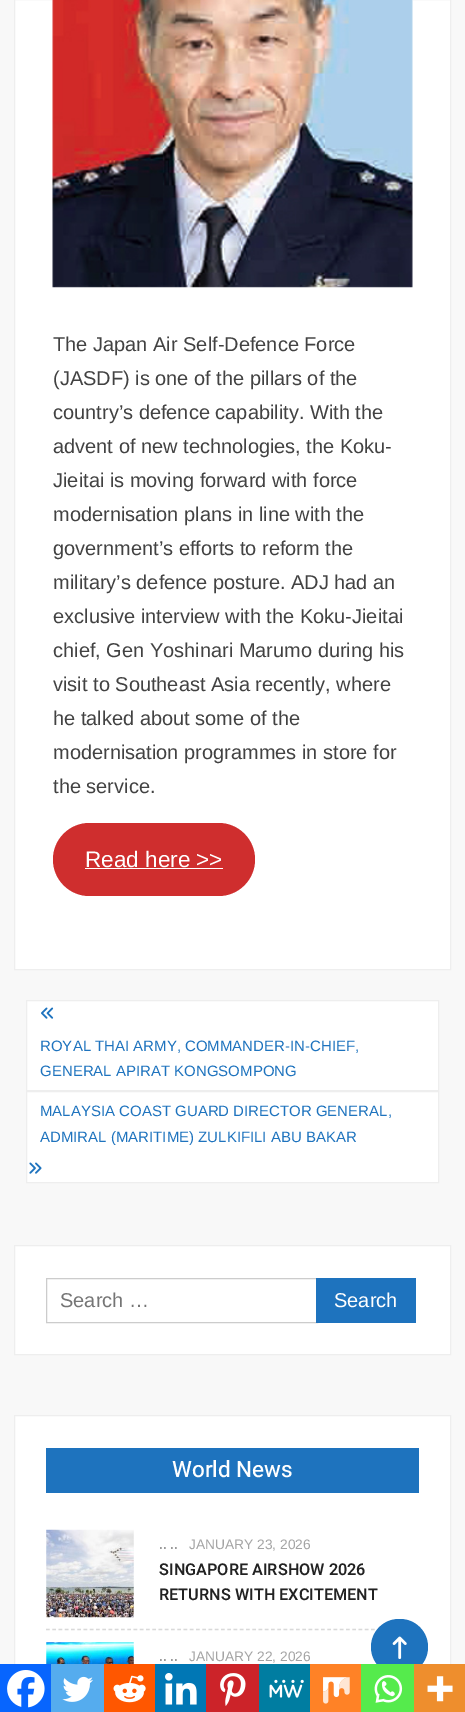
%!PS-Adobe-3.0
%%BoundingBox: 0 0 465 1712
%%LanguageLevel: 3
%%Pages: 1
%%EndComments
%%BeginProlog
/setink { 3 { 255 div 3 1 roll } repeat setrgbcolor } def
/usefont { [ exch dup neg 0 0 3 -1 roll 0 0 ] selectfont } def
/drawtext { setink usefont moveto show } def
/fillbox { setink rectfill } def
/rrect { 5 dict begin { /r /h /w /y /x } { exch def } forall
  x r add y moveto x w add y 2 copy h add r arct x w add y h add x 1 index r arct
  x y h add x y r arct x y 2 copy exch w add exch r arct closepath end } def
/drawimage { 5 dict begin { /h /w /y /x /name } { exch def } forall
  gsave x y translate w h scale
  w h 8 [w 0 0 h 0 0] name (r) file false 3 colorimage grestore end } def
%%EndProlog
%%BeginSetup
<< /PageSize [465 1712] >> setpagedevice
%%EndSetup
%%Page: 1 1
0 1712 translate 1 -1 scale
4 setmiterlimit
0 0 465 1712 248 248 248 fillbox
255 255 255 setink
14.5 -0.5 moveto 450.5 -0.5 lineto 450.5 969.5 lineto 14.5 969.5 lineto closepath gsave fill grestore
238 238 238 setink
stroke
(assets/img1.rgb) 52 0 361 288 drawimage
(The Japan Air Self-Defence Force) 53 351 /LiberationSans-Regular 20 66 66 66 drawtext
(\(JASDF\) is one of the pillars of the) 53 385 /LiberationSans-Regular 20 66 66 66 drawtext
(country’s defence capability. With the) 53 419 /LiberationSans-Regular 20 66 66 66 drawtext
(advent of new technologies, the Koku-) 53 453 /LiberationSans-Regular 20 66 66 66 drawtext
(Jieitai is moving forward with force) 53 487 /LiberationSans-Regular 20 66 66 66 drawtext
(modernisation plans in line with the) 53 521 /LiberationSans-Regular 20 66 66 66 drawtext
(government’s efforts to reform the) 53 555 /LiberationSans-Regular 20 66 66 66 drawtext
(military’s defence posture. ADJ had an) 53 589 /LiberationSans-Regular 20 66 66 66 drawtext
(exclusive interview with the Koku-Jieitai) 53 623 /LiberationSans-Regular 20 66 66 66 drawtext
(chief, Gen Yoshinari Marumo during his) 53 657 /LiberationSans-Regular 20 66 66 66 drawtext
(visit to Southeast Asia recently, where) 53 691 /LiberationSans-Regular 20 66 66 66 drawtext
(he talked about some of the) 53 725 /LiberationSans-Regular 20 66 66 66 drawtext
(modernisation programmes in store for) 53 759 /LiberationSans-Regular 20 66 66 66 drawtext
(the service.) 53 793 /LiberationSans-Regular 20 66 66 66 drawtext
207 46 46 setink
53 823 202 73 36.5 rrect fill
(Read here >>) 85 867 /LiberationSans-Regular 22.5 255 255 255 drawtext
85 868 138 1 255 255 255 fillbox
15 1416 435 248 255 255 255 fillbox
238 238 238 setink
14.5 1415.5 436 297 rectstroke
0 1664 51 48 7 101 254 fillbox
(assets/img2.rgb) 7 1670 38 38 drawimage
51 1664 53 48 85 172 238 fillbox
(assets/img3.rgb) 62 1676 31 26 drawimage
104 1664 51 48 255 87 0 fillbox
(assets/img4.rgb) 113 1675 33 28 drawimage
155 1664 51 48 0 119 181 fillbox
(assets/img5.rgb) 165 1673 32 32 drawimage
206 1664 53 48 204 35 41 fillbox
(assets/img6.rgb) 220 1673 26 33 drawimage
259 1664 51 48 0 125 161 fillbox
(assets/img7.rgb) 269 1679 35 19 drawimage
310 1664 51 48 255 130 38 fillbox
(assets/img8.rgb) 323 1677 27 27 drawimage
217 217 217 setink
1.2 setlinewidth
[3.75 2.5] 0 setdash
46 1629.5 moveto 419 1629.5 lineto stroke
30 115 190 setink
371 1619 57 56 28 rrect fill
361 1664 53 48 85 235 76 fillbox
(assets/img9.rgb) 374 1675 29 28 drawimage
414 1664 51 48 238 142 45 fillbox
(assets/img10.rgb) 427 1676 26 26 drawimage
255 255 255 setink
26.5 1000.5 moveto 438.5 1000.5 lineto 438.5 1090.5 lineto 26.5 1090.5 lineto closepath gsave fill grestore
238 238 238 setink
1 setlinewidth
[] 0 setdash
stroke
(assets/img11.rgb) 41 1007 13 12 drawimage
(ROYAL THAI ARMY, COMMANDER-IN-CHIEF,) 40 1051 /LiberationSans-Regular 15 30 115 190 drawtext
(GENERAL APIRAT KONGSOMPONG) 40 1076 /LiberationSans-Regular 15 30 115 190 drawtext
255 255 255 setink
26.5 1091.5 moveto 438.5 1091.5 lineto 438.5 1182.5 lineto 26.5 1182.5 lineto closepath gsave fill grestore
238 238 238 setink
stroke
(MALAYSIA COAST GUARD DIRECTOR GENERAL,) 40 1116 /LiberationSans-Regular 15 30 115 190 drawtext
(ADMIRAL \(MARITIME\) ZULKIFILI ABU BAKAR) 40 1142 /LiberationSans-Regular 15 30 115 190 drawtext
(assets/img12.rgb) 29 1162 13 12 drawimage
255 255 255 setink
14.5 1245.5 moveto 450.5 1245.5 lineto 450.5 1354.5 lineto 14.5 1354.5 lineto closepath gsave fill grestore
238 238 238 setink
stroke
204 204 204 setink
46.5 1278.5 271 44 rectstroke
(Search …) 60 1307 /LiberationSans-Regular 20 117 117 117 drawtext
316 1278 100 45 30 115 190 fillbox
(Search) 334 1307 /LiberationSans-Regular 20 255 255 255 drawtext
46 1448 373 45 30 115 190 fillbox
(World News) 172 1477 /Heebo-Medium 22.5 255 255 255 drawtext
(assets/img13.rgb) 46 1529 88 89 drawimage
(.. ..) 159 1549 /LiberationSans-Bold 13.75 153 153 153 drawtext
(JANUARY 23, 2026) 189 1549 /LiberationSans-Regular 13.75 164 164 164 drawtext
(SINGAPORE AIRSHOW 2026) 159 1575 /Heebo-SemiBold 16.25 34 34 34 drawtext
(RETURNS WITH EXCITEMENT) 159 1600 /Heebo-SemiBold 16.25 34 34 34 drawtext
(assets/img14.rgb) 46 1642 88 22 drawimage
(.. ..) 159 1661 /LiberationSans-Bold 13.75 153 153 153 drawtext
(JANUARY 22, 2026) 189 1661 /LiberationSans-Regular 13.75 164 164 164 drawtext
(assets/img15.rgb) 392 1636 15 23 drawimage
showpage
%%EOF
